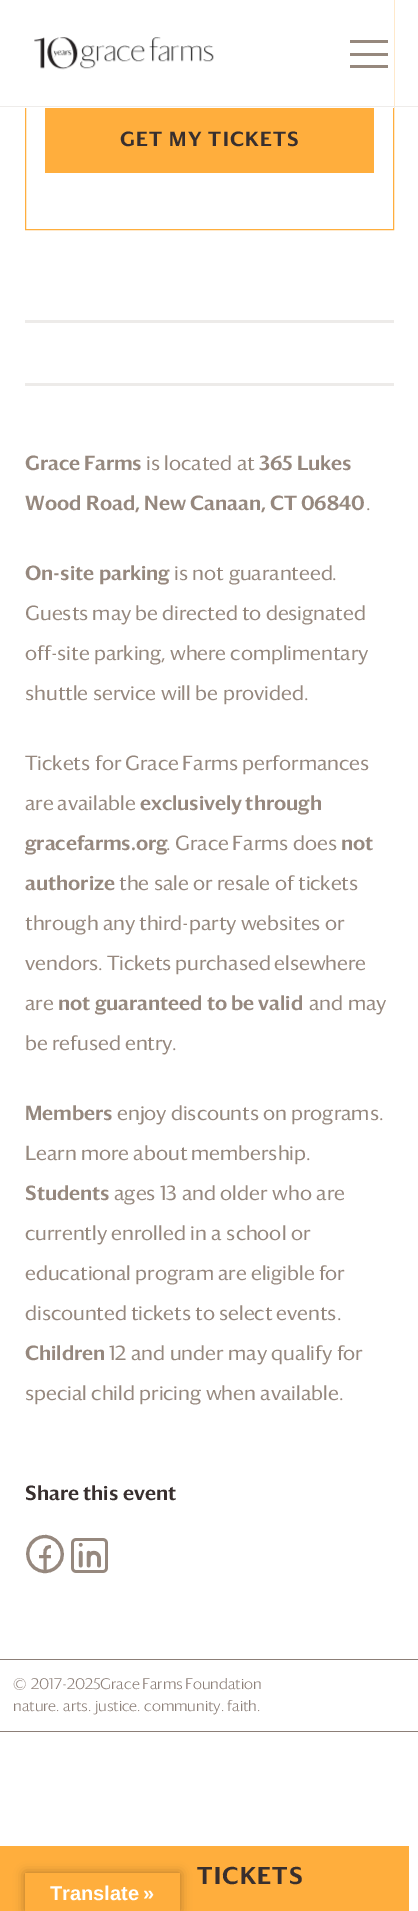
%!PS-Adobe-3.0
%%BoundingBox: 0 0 418 1911
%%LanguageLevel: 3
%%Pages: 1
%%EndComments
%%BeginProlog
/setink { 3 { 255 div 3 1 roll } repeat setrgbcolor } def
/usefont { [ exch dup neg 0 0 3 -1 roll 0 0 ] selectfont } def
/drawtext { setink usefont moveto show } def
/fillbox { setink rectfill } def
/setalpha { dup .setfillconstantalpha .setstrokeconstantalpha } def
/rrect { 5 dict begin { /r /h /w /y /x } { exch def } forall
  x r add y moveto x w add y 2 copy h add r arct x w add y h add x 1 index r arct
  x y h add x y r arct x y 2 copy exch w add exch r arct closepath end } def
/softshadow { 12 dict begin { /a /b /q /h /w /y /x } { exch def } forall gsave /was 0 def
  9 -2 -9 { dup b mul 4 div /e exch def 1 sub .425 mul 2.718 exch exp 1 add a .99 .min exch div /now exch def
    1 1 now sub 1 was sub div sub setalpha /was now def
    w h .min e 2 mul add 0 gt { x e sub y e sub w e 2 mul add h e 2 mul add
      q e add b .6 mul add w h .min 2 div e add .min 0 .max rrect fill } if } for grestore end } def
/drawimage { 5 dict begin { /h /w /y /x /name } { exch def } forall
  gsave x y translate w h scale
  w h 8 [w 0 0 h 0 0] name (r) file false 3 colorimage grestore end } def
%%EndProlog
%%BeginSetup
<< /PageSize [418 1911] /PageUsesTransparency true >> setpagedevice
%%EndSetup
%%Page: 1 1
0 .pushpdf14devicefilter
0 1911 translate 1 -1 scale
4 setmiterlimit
0 0 418 1911 255 255 255 fillbox
255 174 61 setink
25.5 -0.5 368 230 rectstroke
25 0 369 108 255 255 255 fillbox
0 106 418 1 238 236 234 fillbox
(assets/img1.rgb) 34 37 180 33 drawimage
350 40 38 3 150 136 125 fillbox
350 53 38 3 150 136 125 fillbox
350 65 38 3 150 136 125 fillbox
45 108 329 65 255 174 61 fillbox
/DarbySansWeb-Medium 20 usefont
56 47 46 setink
120 146 moveto 1.25 0 (GET MY TICKETS) ashow
0 1846 409 65 255 174 61 fillbox
/DarbySansWeb-Medium 23.75 usefont
56 47 46 setink
197 1884 moveto -1 0 32 1.25 0 (TICKETS) awidthshow
25 320 369 3 237 235 233 fillbox
25 383 369 3 237 235 233 fillbox
/DarbySansWeb-Medium 20 usefont
150 136 126 setink
25 470 moveto -1 0 32 (Grace Farms) widthshow
(is located at) 146 470 /DarbySansWeb-Regular 20 150 136 126 drawtext
/DarbySansWeb-Medium 20 usefont
259 470 moveto -1 0 32 (365 Lukes) widthshow
25 510 moveto -0.5 0 32 (Wood Road, New Canaan, CT 06840) widthshow
(.) 366 510 /DarbySansWeb-Regular 20 150 136 126 drawtext
(On-site parking) 25 580 /DarbySansWeb-Medium 20 150 136 126 drawtext
(is not guaranteed.) 174 580 /DarbySansWeb-Regular 20 150 136 126 drawtext
25 620 moveto -0.5 0 32 (Guests may be directed to designated) widthshow
25 660 moveto -0.5 0 32 (off-site parking, where complimentary) widthshow
(shuttle service will be provided.) 25 700 /DarbySansWeb-Regular 20 150 136 126 drawtext
(Tickets for) 25 770 /DarbySansWeb-Regular 20 150 136 126 drawtext
125 770 moveto -1 0 32 (Grace Farms) widthshow
(performances) 242 770 /DarbySansWeb-Regular 20 150 136 126 drawtext
25 810 moveto -1 0 32 (are available) widthshow
/DarbySansWeb-Medium 20 usefont
140 810 moveto -1 0 32 (exclusively through) widthshow
(gracefarms.org) 25 850 /DarbySansWeb-Medium 20 150 136 126 drawtext
(.) 166 850 /DarbySansWeb-Regular 20 150 136 126 drawtext
175 850 moveto -1 0 32 (Grace Farms) widthshow
(does) 293 850 /DarbySansWeb-Regular 20 150 136 126 drawtext
(not) 341 850 /DarbySansWeb-Medium 20 150 136 126 drawtext
(authorize) 25 890 /DarbySansWeb-Medium 20 150 136 126 drawtext
/DarbySansWeb-Regular 20 usefont
119 890 moveto -0.25 0 32 (the sale or resale of tickets) widthshow
25 930 moveto -0.5 0 32 (through any third-party websites or) widthshow
25 970 moveto -1 0 32 (vendors. Tickets purchased elsewhere) widthshow
(are) 25 1010 /DarbySansWeb-Regular 20 150 136 126 drawtext
/DarbySansWeb-Medium 20 usefont
58 1010 moveto -0.5 0 32 (not guaranteed to be valid) widthshow
(and may) 309 1010 /DarbySansWeb-Regular 20 150 136 126 drawtext
25 1050 moveto -0.5 0 32 (be refused entry.) widthshow
(Members) 25 1120 /DarbySansWeb-Medium 20 150 136 126 drawtext
/DarbySansWeb-Regular 20 usefont
117 1120 moveto -0.5 0 32 (enjoy discounts on programs.) widthshow
25 1160 moveto -0.5 0 32 (Learn more about membership) widthshow
(.) 306 1160 /DarbySansWeb-Regular 20 150 136 126 drawtext
(Students) 25 1200 /DarbySansWeb-Medium 20 150 136 126 drawtext
(ages 13 and older who are) 114 1200 /DarbySansWeb-Regular 20 150 136 126 drawtext
(currently enrolled in a school or) 25 1240 /DarbySansWeb-Regular 20 150 136 126 drawtext
25 1280 moveto -0.5 0 32 (educational program are eligible for) widthshow
25 1320 moveto -0.5 0 32 (discounted tickets to select events.) widthshow
(Children) 25 1360 /DarbySansWeb-Medium 20 150 136 126 drawtext
(12 and under may qualify for) 109 1360 /DarbySansWeb-Regular 20 150 136 126 drawtext
(special child pricing when available.) 25 1400 /DarbySansWeb-Regular 20 150 136 126 drawtext
(Share this event) 25 1500 /DarbySansWeb-Medium 20 56 47 46 drawtext
150 136 126 setink
3.1 setlinewidth
45 1571.5 moveto 28 1571.5 21 1549 35.5 1539.5 curveto 38 1537.5 41.5 1536.5 45 1536.5 curveto 62 1537 69 1559 54.5 1568.5 curveto 52 1570.5 48.5 1571.5 45 1571.5 curveto closepath 45 1571.5 moveto 45 1558 lineto 45 1552.5 43.5 1546.5 51 1546.5 curveto 39 1556.5 moveto 51 1556.5 lineto stroke
(assets/img2.rgb) 71 1538 37 35 drawimage
0 1659 418 1 140 127 120 fillbox
/DarbySansWeb-Light 15 usefont
13 1689 moveto 1 0 32 (© 2017-2025) widthshow
100 1689 moveto -1 0 32 (Grace Farms) widthshow
(Foundation) 185 1689 /DarbySansWeb-Light 15 140 127 120 drawtext
(nature. arts. justice. community. faith.) 13 1711 /DarbySansWeb-Light 15 140 127 120 drawtext
0 1731 418 1 140 127 120 fillbox
0 0 0 setink
25 1873 155 38 0 5.5 0.3 softshadow
25 1873 155 38 255 174 61 fillbox
/LiberationSans-Bold 20 usefont
255 255 255 setink
50 1900 moveto -1 0 32 (Translate ») widthshow
.poppdf14devicefilter showpage
%%EOF
